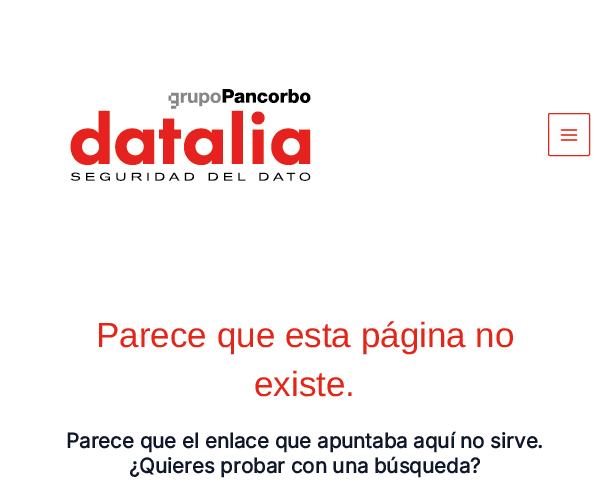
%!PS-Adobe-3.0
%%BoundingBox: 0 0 610 497
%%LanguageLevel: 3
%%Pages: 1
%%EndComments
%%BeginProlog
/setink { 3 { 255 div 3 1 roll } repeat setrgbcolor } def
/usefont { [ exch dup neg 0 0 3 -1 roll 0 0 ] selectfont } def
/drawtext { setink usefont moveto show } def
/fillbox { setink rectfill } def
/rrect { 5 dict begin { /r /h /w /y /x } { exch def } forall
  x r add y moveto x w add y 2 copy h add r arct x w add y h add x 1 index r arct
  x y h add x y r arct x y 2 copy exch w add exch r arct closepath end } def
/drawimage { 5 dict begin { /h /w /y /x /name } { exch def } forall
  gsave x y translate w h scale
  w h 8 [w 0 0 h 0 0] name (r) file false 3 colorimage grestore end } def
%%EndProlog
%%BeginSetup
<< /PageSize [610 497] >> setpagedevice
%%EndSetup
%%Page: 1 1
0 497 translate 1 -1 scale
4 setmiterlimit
0 0 610 497 255 255 255 fillbox
(assets/img1.rgb) 70 89 241 92 drawimage
228 38 24 setink
548.5 113.5 41 42 1.5 rrect stroke
(assets/img2.rgb) 560 129 18 12 drawimage
(Parece que esta página no) 96 347 /LiberationSans-Regular 35 228 38 24 drawtext
(existe.) 254 396 /LiberationSans-Regular 35 228 38 24 drawtext
(Parece que el enlace que apuntaba aquí no sirve.) 66 448 /Inter-Bold 20.5 15 23 42 drawtext
(¿Quieres probar con una búsqueda?) 129 473 /Inter-Bold 20.5 15 23 42 drawtext
showpage
%%EOF
